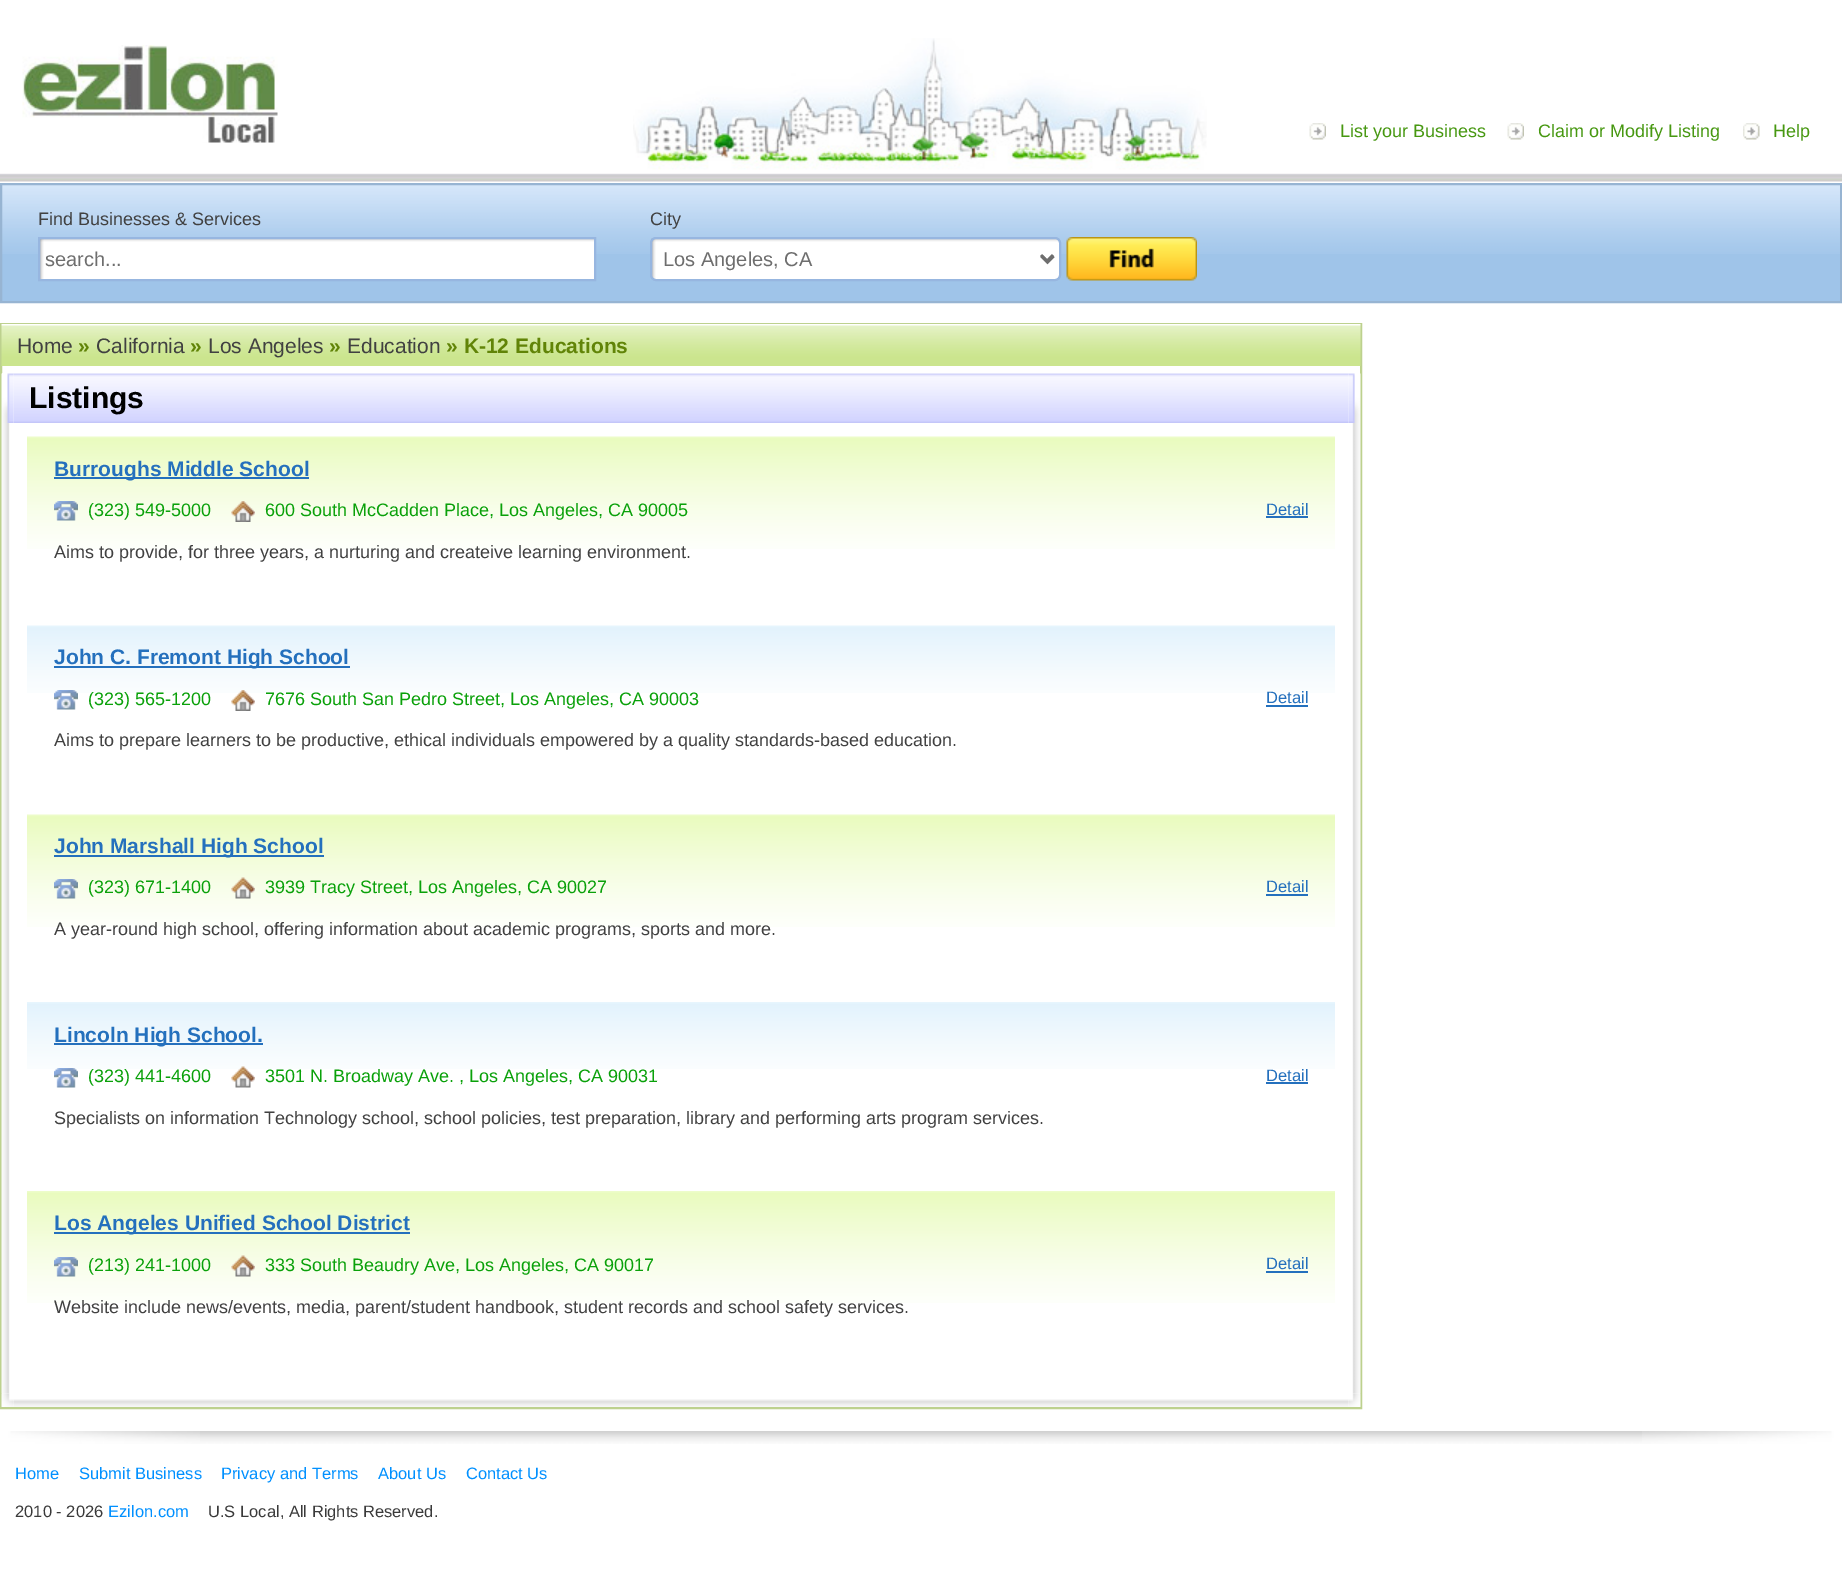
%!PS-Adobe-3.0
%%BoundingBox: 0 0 1842 1593
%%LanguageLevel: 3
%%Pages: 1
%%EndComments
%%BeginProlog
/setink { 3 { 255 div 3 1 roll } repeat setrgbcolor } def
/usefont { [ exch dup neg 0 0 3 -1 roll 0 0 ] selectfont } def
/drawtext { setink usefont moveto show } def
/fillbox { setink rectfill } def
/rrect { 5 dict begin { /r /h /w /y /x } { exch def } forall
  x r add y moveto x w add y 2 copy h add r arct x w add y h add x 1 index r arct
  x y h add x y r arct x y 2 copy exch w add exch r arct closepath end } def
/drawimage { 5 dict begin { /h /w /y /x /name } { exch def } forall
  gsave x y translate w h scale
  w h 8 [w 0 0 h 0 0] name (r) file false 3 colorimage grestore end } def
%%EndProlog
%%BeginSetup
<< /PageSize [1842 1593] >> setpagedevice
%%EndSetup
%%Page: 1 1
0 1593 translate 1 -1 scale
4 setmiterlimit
0 0 1842 1593 255 255 255 fillbox
(assets/img1.rgb) 0 173 1842 9 drawimage
(assets/img2.rgb) 633 38 574 132 drawimage
(assets/img3.rgb) 22 45 256 98 drawimage
(assets/img4.rgb) 1309 123 17 17 drawimage
(List your Business) 1340 137 /LiberationSans-Regular 18 71 152 17 drawtext
(assets/img4.rgb) 1507 123 17 17 drawimage
(Claim or Modify Listing) 1538 137 /LiberationSans-Regular 18 71 152 17 drawtext
(assets/img5.rgb) 1743 123 17 17 drawimage
(Help) 1773 137 /LiberationSans-Regular 18 71 152 17 drawtext
2 254 1838 47 159 196 233 fillbox
(assets/img6.rgb) 2 185 1838 69 drawimage
151 180 210 setink
2 setlinewidth
1 184 1840 118 rectstroke
(Find Businesses & Services) 38 225 /LiberationSans-Regular 18 65 65 65 drawtext
(assets/img7.rgb) 40 239 554 40 drawimage
151 182 224 setink
39 238 556 42 rectstroke
(search...) 45 266 /LiberationSans-Regular 20 110 110 110 drawtext
(City) 650 225 /LiberationSans-Regular 18 65 65 65 drawtext
(assets/img8.rgb) 651 238 410 43 drawimage
151 182 224 setink
651 238 409 42 5 rrect stroke
110 110 110 setink
3 setlinewidth
1041.5 256 moveto 1047.5 262 lineto 1053.5 256 lineto stroke
(Los Angeles, CA) 663 266 /LiberationSans-Regular 20 110 110 110 drawtext
(assets/img9.rgb) 1066 237 131 44 drawimage
189 209 142 setink
2 setlinewidth
1 324 1360 1084 rectstroke
(assets/img10.rgb) 1 324 1360 42 drawimage
(Home) 17 353 /LiberationSans-Regular 21 65 65 65 drawtext
(») 78 353 /LiberationSans-Bold 21 97 132 7 drawtext
(California) 96 353 /LiberationSans-Regular 21 65 65 65 drawtext
(») 190 353 /LiberationSans-Bold 21 97 132 7 drawtext
(Los Angeles) 208 353 /LiberationSans-Regular 21 65 65 65 drawtext
(») 329 353 /LiberationSans-Bold 21 97 132 7 drawtext
(Education) 347 353 /LiberationSans-Regular 21 65 65 65 drawtext
(» K-12 Educations) 446 353 /LiberationSans-Bold 21 97 132 7 drawtext
(assets/img12.rgb) 13 373 1336 50 drawimage
(assets/img11.rgb) 1 373 13 50 drawimage
(Listings) 29 408 /LiberationSans-Bold 30 0 0 0 drawtext
(assets/img13.rgb) 1348 373 13 50 drawimage
(assets/img14.rgb) 1 423 9 971 drawimage
(assets/img15.rgb) 27 436 1308 113 drawimage
54 477 255 2 36 112 189 fillbox
(Burroughs Middle School) 54 476 /LiberationSans-Bold 21 36 112 189 drawtext
(assets/img16.rgb) 54 501 24 20 drawimage
(\(323\) 549-5000) 88 516 /LiberationSans-Regular 18 10 161 10 drawtext
(assets/img17.rgb) 231 501 24 21 drawimage
(600 South McCadden Place, Los Angeles, CA 90005) 265 516 /LiberationSans-Regular 18 10 161 10 drawtext
(Detail) 1266 515 /LiberationSans-Regular 16.5 36 112 189 drawtext
1266 516 42 2 36 112 189 fillbox
(Aims to provide, for three years, a nurturing and createive learning environment.) 54 558 /LiberationSans-Regular 18 65 65 65 drawtext
(assets/img18.rgb) 27 625 1308 68 drawimage
54 666 296 2 36 112 189 fillbox
(John C. Fremont High School) 54 664 /LiberationSans-Bold 21 36 112 189 drawtext
(assets/img19.rgb) 54 690 24 20 drawimage
(\(323\) 565-1200) 88 705 /LiberationSans-Regular 18 10 161 10 drawtext
(assets/img20.rgb) 231 690 24 21 drawimage
(7676 South San Pedro Street, Los Angeles, CA 90003) 265 705 /LiberationSans-Regular 18 10 161 10 drawtext
(Detail) 1266 703 /LiberationSans-Regular 16.5 36 112 189 drawtext
1266 705 42 2 36 112 189 fillbox
(Aims to prepare learners to be productive, ethical individuals empowered by a quality standards-based education.) 54 746 /LiberationSans-Regular 18 65 65 65 drawtext
(assets/img21.rgb) 27 814 1308 113 drawimage
54 855 270 2 36 112 189 fillbox
(John Marshall High School) 54 853 /LiberationSans-Bold 21 36 112 189 drawtext
(assets/img16.rgb) 54 879 24 20 drawimage
(\(323\) 671-1400) 88 893 /LiberationSans-Regular 18 10 161 10 drawtext
(assets/img22.rgb) 231 877 24 22 drawimage
(3939 Tracy Street, Los Angeles, CA 90027) 265 893 /LiberationSans-Regular 18 10 161 10 drawtext
(Detail) 1266 892 /LiberationSans-Regular 16.5 36 112 189 drawtext
1266 894 42 2 36 112 189 fillbox
(A year-round high school, offering information about academic programs, sports and more.) 54 935 /LiberationSans-Regular 18 65 65 65 drawtext
(assets/img23.rgb) 27 1002 1308 67 drawimage
54 1043 209 2 36 112 189 fillbox
(Lincoln High School.) 54 1042 /LiberationSans-Bold 21 36 112 189 drawtext
(assets/img24.rgb) 54 1068 24 20 drawimage
(\(323\) 441-4600) 88 1082 /LiberationSans-Regular 18 10 161 10 drawtext
(assets/img25.rgb) 231 1066 24 22 drawimage
(3501 N. Broadway Ave. , Los Angeles, CA 90031) 265 1082 /LiberationSans-Regular 18 10 161 10 drawtext
(Detail) 1266 1081 /LiberationSans-Regular 16.5 36 112 189 drawtext
1266 1082 42 2 36 112 189 fillbox
(Specialists on information Technology school, school policies, test preparation, library and performing arts program services.) 54 1124 /LiberationSans-Regular 18 65 65 65 drawtext
(assets/img26.rgb) 27 1191 1308 112 drawimage
54 1232 356 2 36 112 189 fillbox
(Los Angeles Unified School District) 54 1230 /LiberationSans-Bold 21 36 112 189 drawtext
(assets/img27.rgb) 54 1257 24 20 drawimage
(\(213\) 241-1000) 88 1271 /LiberationSans-Regular 18 10 161 10 drawtext
(assets/img28.rgb) 231 1255 24 22 drawimage
(333 South Beaudry Ave, Los Angeles, CA 90017) 265 1271 /LiberationSans-Regular 18 10 161 10 drawtext
(Detail) 1266 1269 /LiberationSans-Regular 16.5 36 112 189 drawtext
1266 1271 42 2 36 112 189 fillbox
(Website include news/events, media, parent/student handbook, student records and school safety services.) 54 1313 /LiberationSans-Regular 18 65 65 65 drawtext
(assets/img29.rgb) 1352 423 9 971 drawimage
(assets/img31.rgb) 13 1399 1336 8 drawimage
(assets/img30.rgb) 1 1393 13 14 drawimage
(assets/img32.rgb) 1348 1393 13 14 drawimage
(assets/img33.rgb) 200 1431 1442 13 drawimage
(assets/img34.rgb) 0 1431 200 13 drawimage
(assets/img35.rgb) 1642 1431 200 13 drawimage
(Home) 15 1479 /LiberationSans-Regular 16.5 0 144 255 drawtext
(Submit Business) 79 1479 /LiberationSans-Regular 16.5 0 144 255 drawtext
(Privacy and Terms) 221 1479 /LiberationSans-Regular 16.5 0 144 255 drawtext
(About Us) 378 1479 /LiberationSans-Regular 16.5 0 144 255 drawtext
(Contact Us) 466 1479 /LiberationSans-Regular 16.5 0 144 255 drawtext
(2010 - 2026) 15 1517 /LiberationSans-Regular 16.5 58 58 58 drawtext
(Ezilon.com) 108 1517 /LiberationSans-Regular 16.5 0 144 255 drawtext
(U.S Local, All Rights Reserved.) 208 1517 /LiberationSans-Regular 16.5 58 58 58 drawtext
showpage
%%EOF
